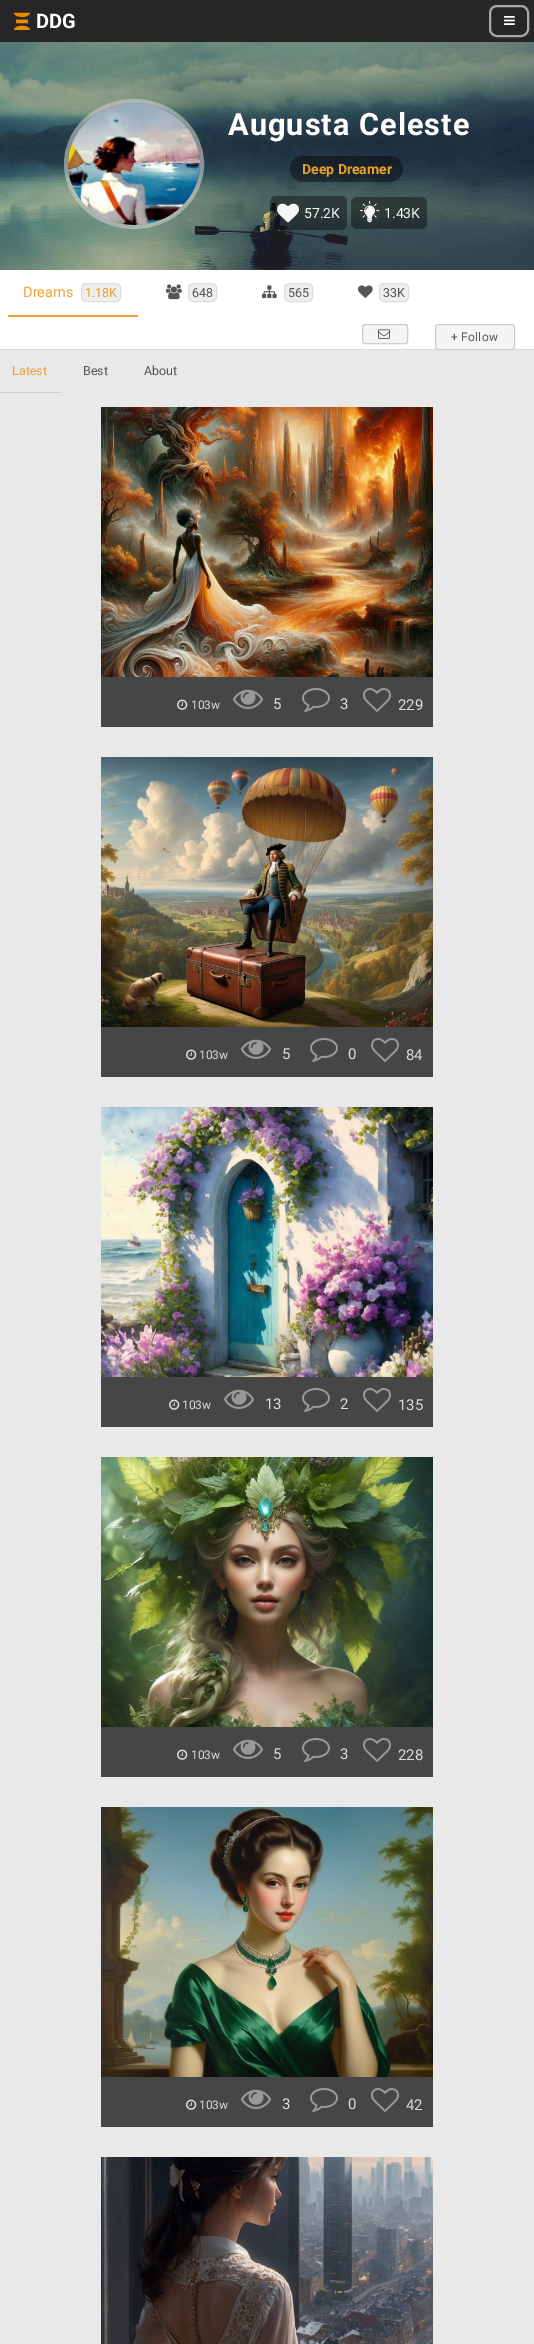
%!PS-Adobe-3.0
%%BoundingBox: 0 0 534 2344
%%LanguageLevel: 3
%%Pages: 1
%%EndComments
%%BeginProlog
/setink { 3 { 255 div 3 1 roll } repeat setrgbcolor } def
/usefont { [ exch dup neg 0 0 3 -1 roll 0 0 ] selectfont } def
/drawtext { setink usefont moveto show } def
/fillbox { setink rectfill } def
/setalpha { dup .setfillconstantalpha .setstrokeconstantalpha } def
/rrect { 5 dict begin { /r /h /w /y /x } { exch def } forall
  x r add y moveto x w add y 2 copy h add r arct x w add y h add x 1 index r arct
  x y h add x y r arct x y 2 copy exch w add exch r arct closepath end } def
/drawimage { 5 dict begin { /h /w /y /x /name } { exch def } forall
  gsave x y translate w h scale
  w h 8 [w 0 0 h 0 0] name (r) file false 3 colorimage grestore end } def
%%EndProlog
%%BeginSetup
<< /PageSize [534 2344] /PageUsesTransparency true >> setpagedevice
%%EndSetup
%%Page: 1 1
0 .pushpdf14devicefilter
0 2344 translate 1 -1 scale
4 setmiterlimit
0 0 534 2344 233 233 233 fillbox
0 0 534 42 38 38 40 fillbox
(assets/img1.rgb) 13 12 18 18 drawimage
(DDG) 36 28 /Roboto-Bold 20 255 255 255 drawtext
168 168 169 setink
2 setlinewidth
490 6 38 30 7 rrect stroke
(assets/img2.rgb) 504 16 11 9 drawimage
(assets/img3.rgb) 0 42 534 228 drawimage
0.6 setalpha
204 204 204 setink
4 setlinewidth
134 101 moveto 171.5 101 202 129 202 164 curveto 202 199 171.5 227 134 227 curveto 96.5 227 66 199 66 164 curveto 66 129 96.5 101 134 101 curveto closepath stroke
1 setalpha
(assets/img4.rgb) 68 103 132 122 drawimage
/Roboto-Bold 30.75 usefont
255 255 255 setink
228 135 moveto 1 0 (Augusta Celeste) ashow
0.4 setalpha
0 0 0 setink
290 156 113 26 13 rrect fill
1 setalpha
(Deep Dreamer) 302 174 /Roboto-Bold 14 235 161 35 drawtext
0.4 setalpha
0 0 0 setink
270 196 77 34 6 rrect fill
1 setalpha
(assets/img5.rgb) 277 203 22 20 drawimage
(57.2K) 304 218 /Roboto-Regular 14 246 246 246 drawtext
0.4 setalpha
0 0 0 setink
351 197 76 32 6 rrect fill
1 setalpha
(assets/img6.rgb) 360 200 20 23 drawimage
(1.43K) 384 218 /Roboto-Regular 14 246 246 246 drawtext
0 270 534 79 255 255 255 fillbox
0 349 534 1 220 220 220 fillbox
8 315 130 2 235 161 51 fillbox
(Dreams) 23 297 /Roboto-Regular 14.5 235 161 51 drawtext
238 238 238 setink
81.5 283.5 39 18 4.5 rrect gsave fill grestore
221 221 221 setink
1 setlinewidth
stroke
(1.18K) 85 297 /Roboto-Regular 12.5 235 161 51 drawtext
(assets/img7.rgb) 166 284 16 16 drawimage
238 238 238 setink
188.5 283.5 28 18 4.5 rrect gsave fill grestore
221 221 221 setink
stroke
(648) 192 297 /Roboto-Regular 12.5 85 85 85 drawtext
(assets/img8.rgb) 262 285 15 14 drawimage
238 238 238 setink
284.5 283.5 28 18 4.5 rrect gsave fill grestore
221 221 221 setink
stroke
(565) 288 297 /Roboto-Regular 12.5 85 85 85 drawtext
(assets/img9.rgb) 358 285 15 13 drawimage
238 238 238 setink
379.5 283.5 29 18 4.5 rrect gsave fill grestore
221 221 221 setink
stroke
(33K) 383 297 /Roboto-Regular 12.5 85 85 85 drawtext
245 245 245 setink
362.5 324.5 45 19 2.5 rrect gsave fill grestore
204 204 204 setink
stroke
(assets/img10.rgb) 378 329 12 10 drawimage
245 245 245 setink
435.5 324.5 79 25 2.5 rrect gsave fill grestore
204 204 204 setink
stroke
/Roboto-Regular 12 usefont
85 85 85 setink
451 341 moveto 0.25 0 (+ Follow) ashow
0 392 61 1 204 204 204 fillbox
(Latest) 12 375 /Roboto-Regular 12.5 235 161 51 drawtext
(Best) 83 375 /Roboto-Regular 12.5 85 85 85 drawtext
(About) 144 375 /Roboto-Regular 12.5 85 85 85 drawtext
(assets/img11.rgb) 101 407 332 270 drawimage
101 677 332 50 70 70 70 fillbox
(assets/img12.rgb) 177 699 11 11 drawimage
(103w) 191 709 /Roboto-Regular 12 221 221 221 drawtext
(assets/img13.rgb) 233 689 30 20 drawimage
(5) 273 709 /Roboto-Regular 15 221 221 221 drawtext
(assets/img14.rgb) 302 688 28 24 drawimage
(3) 340 709 /Roboto-Regular 15 221 221 221 drawtext
(assets/img15.rgb) 363 688 28 24 drawimage
(229) 398 710 /Roboto-Regular 15 221 221 221 drawtext
(assets/img16.rgb) 101 757 332 270 drawimage
101 1027 332 50 70 70 70 fillbox
(assets/img12.rgb) 186 1049 11 11 drawimage
(103w) 199 1059 /Roboto-Regular 12 221 221 221 drawtext
(assets/img13.rgb) 241 1039 30 20 drawimage
(5) 282 1059 /Roboto-Regular 15 221 221 221 drawtext
(assets/img14.rgb) 310 1038 28 24 drawimage
(0) 348 1059 /Roboto-Regular 15 221 221 221 drawtext
(assets/img15.rgb) 371 1038 28 24 drawimage
(84) 406 1060 /Roboto-Regular 15 221 221 221 drawtext
(assets/img17.rgb) 101 1107 332 270 drawimage
101 1377 332 50 70 70 70 fillbox
(assets/img12.rgb) 169 1399 11 11 drawimage
(103w) 182 1409 /Roboto-Regular 12 221 221 221 drawtext
(assets/img13.rgb) 224 1389 30 20 drawimage
(13) 265 1409 /Roboto-Regular 15 221 221 221 drawtext
(assets/img14.rgb) 302 1388 28 24 drawimage
(2) 340 1409 /Roboto-Regular 15 221 221 221 drawtext
(assets/img15.rgb) 363 1388 28 24 drawimage
(135) 398 1410 /Roboto-Regular 15 221 221 221 drawtext
(assets/img18.rgb) 101 1457 332 270 drawimage
101 1727 332 50 70 70 70 fillbox
(assets/img12.rgb) 177 1749 11 11 drawimage
(103w) 191 1759 /Roboto-Regular 12 221 221 221 drawtext
(assets/img13.rgb) 233 1739 30 20 drawimage
(5) 273 1759 /Roboto-Regular 15 221 221 221 drawtext
(assets/img14.rgb) 302 1738 28 24 drawimage
(3) 340 1759 /Roboto-Regular 15 221 221 221 drawtext
(assets/img15.rgb) 363 1738 28 24 drawimage
(228) 398 1760 /Roboto-Regular 15 221 221 221 drawtext
(assets/img19.rgb) 101 1807 332 270 drawimage
101 2077 332 50 70 70 70 fillbox
(assets/img12.rgb) 186 2099 11 11 drawimage
(103w) 199 2109 /Roboto-Regular 12 221 221 221 drawtext
(assets/img13.rgb) 241 2089 30 20 drawimage
(3) 282 2109 /Roboto-Regular 15 221 221 221 drawtext
(assets/img14.rgb) 310 2088 28 24 drawimage
(0) 348 2109 /Roboto-Regular 15 221 221 221 drawtext
(assets/img15.rgb) 371 2088 28 24 drawimage
(42) 406 2110 /Roboto-Regular 15 221 221 221 drawtext
(assets/img20.rgb) 101 2157 332 187 drawimage
.poppdf14devicefilter showpage
%%EOF
